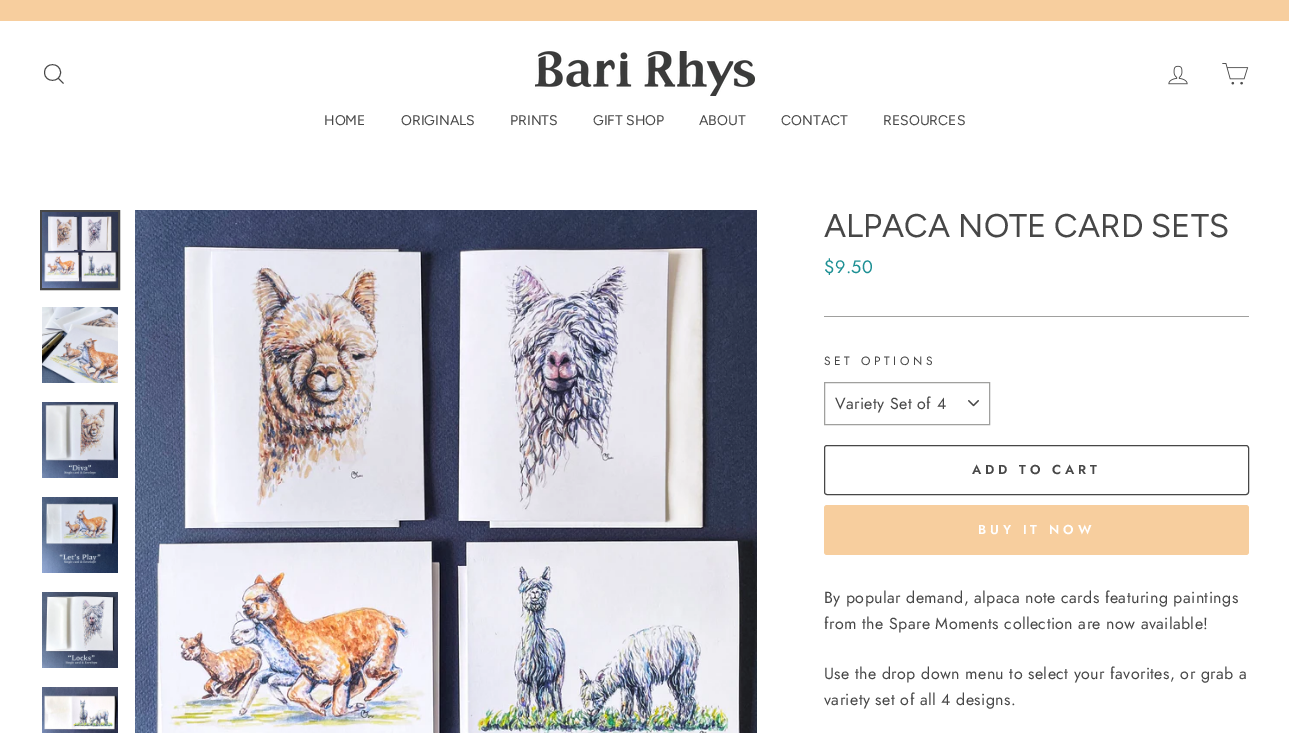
%!PS-Adobe-3.0
%%BoundingBox: 0 0 1289 733
%%LanguageLevel: 3
%%Pages: 1
%%EndComments
%%BeginProlog
/setink { 3 { 255 div 3 1 roll } repeat setrgbcolor } def
/usefont { [ exch dup neg 0 0 3 -1 roll 0 0 ] selectfont } def
/drawtext { setink usefont moveto show } def
/fillbox { setink rectfill } def
/rrect { 5 dict begin { /r /h /w /y /x } { exch def } forall
  x r add y moveto x w add y 2 copy h add r arct x w add y h add x 1 index r arct
  x y h add x y r arct x y 2 copy exch w add exch r arct closepath end } def
/drawimage { 5 dict begin { /h /w /y /x /name } { exch def } forall
  gsave x y translate w h scale
  w h 8 [w 0 0 h 0 0] name (r) file false 3 colorimage grestore end } def
%%EndProlog
%%BeginSetup
<< /PageSize [1289 733] >> setpagedevice
%%EndSetup
%%Page: 1 1
0 733 translate 1 -1 scale
4 setmiterlimit
0 0 1289 733 255 255 255 fillbox
0 0 1289 21 247 206 158 fillbox
71 71 71 setink
0.9 setlinewidth
60.5 72.5 moveto 60.5 83 44.5 83 44.5 72.5 curveto 44.5 62 60.5 62 60.5 72.5 curveto closepath 63.5 83.5 moveto 58.5 78.5 lineto stroke
(assets/img1.rgb) 535 51 220 45 drawimage
(assets/img2.rgb) 1168 65 20 20 drawimage
(assets/img3.rgb) 1222 63 27 22 drawimage
(HOME) 324 125 /Figtree-Regular 14 71 71 71 drawtext
(ORIGINALS) 401 125 /Figtree-Regular 14 71 71 71 drawtext
(PRINTS) 510 125 /Figtree-Regular 14 71 71 71 drawtext
(GIFT SHOP) 593 125 /Figtree-Regular 14 71 71 71 drawtext
(ABOUT) 699 125 /Figtree-Regular 14 71 71 71 drawtext
(CONTACT) 781 125 /Figtree-Regular 14 71 71 71 drawtext
(RESOURCES) 883 125 /Figtree-Regular 14 71 71 71 drawtext
2 setlinewidth
41 211 78 78 rectstroke
(assets/img4.rgb) 42 212 76 76 drawimage
(assets/img5.rgb) 42 307 76 76 drawimage
(assets/img6.rgb) 42 402 76 76 drawimage
(assets/img7.rgb) 42 497 76 76 drawimage
(assets/img8.rgb) 42 592 76 76 drawimage
(assets/img9.rgb) 42 687 76 46 drawimage
(assets/img10.rgb) 135 210 622 523 drawimage
(ALPACA NOTE CARD SETS) 824 237 /Figtree-Regular 32.75 71 71 71 drawtext
/Jost-Regular 18 usefont
29 144 148 setink
824 273 moveto 0.4 0 ($9.50) ashow
824 316 425 1 160 160 158 fillbox
/Jost-Regular 12 usefont
71 71 71 setink
824 365 moveto 3.6 0 (SET OPTIONS) ashow
(assets/img11.rgb) 968 400 11 7 drawimage
160 160 158 setink
1 setlinewidth
824.5 382.5 165 42 rectstroke
/Jost-Regular 16 usefont
71 71 71 setink
835 409 moveto 0.4 0 (Variety Set of 4) ashow
824.5 445.5 424 49 2.5 rrect stroke
/Jost-SemiBold 13 usefont
972 474 moveto 3.9 0 (ADD TO CART) ashow
247 206 158 setink
824 505 425 50 3 rrect fill
255 255 255 setink
978 534 moveto 3.9 0 (BUY IT NOW) ashow
/Jost-Regular 16 usefont
71 71 71 setink
824 603 moveto 0.4 0 (By popular demand, alpaca note cards featuring paintings) ashow
824 629 moveto 0.4 0 (from the Spare Moments collection are now available!) ashow
824 679 moveto 0.4 0 (Use the drop down menu to select your favorites, or grab a) ashow
824 705 moveto 0.4 0 (variety set of all 4 designs.) ashow
showpage
%%EOF
